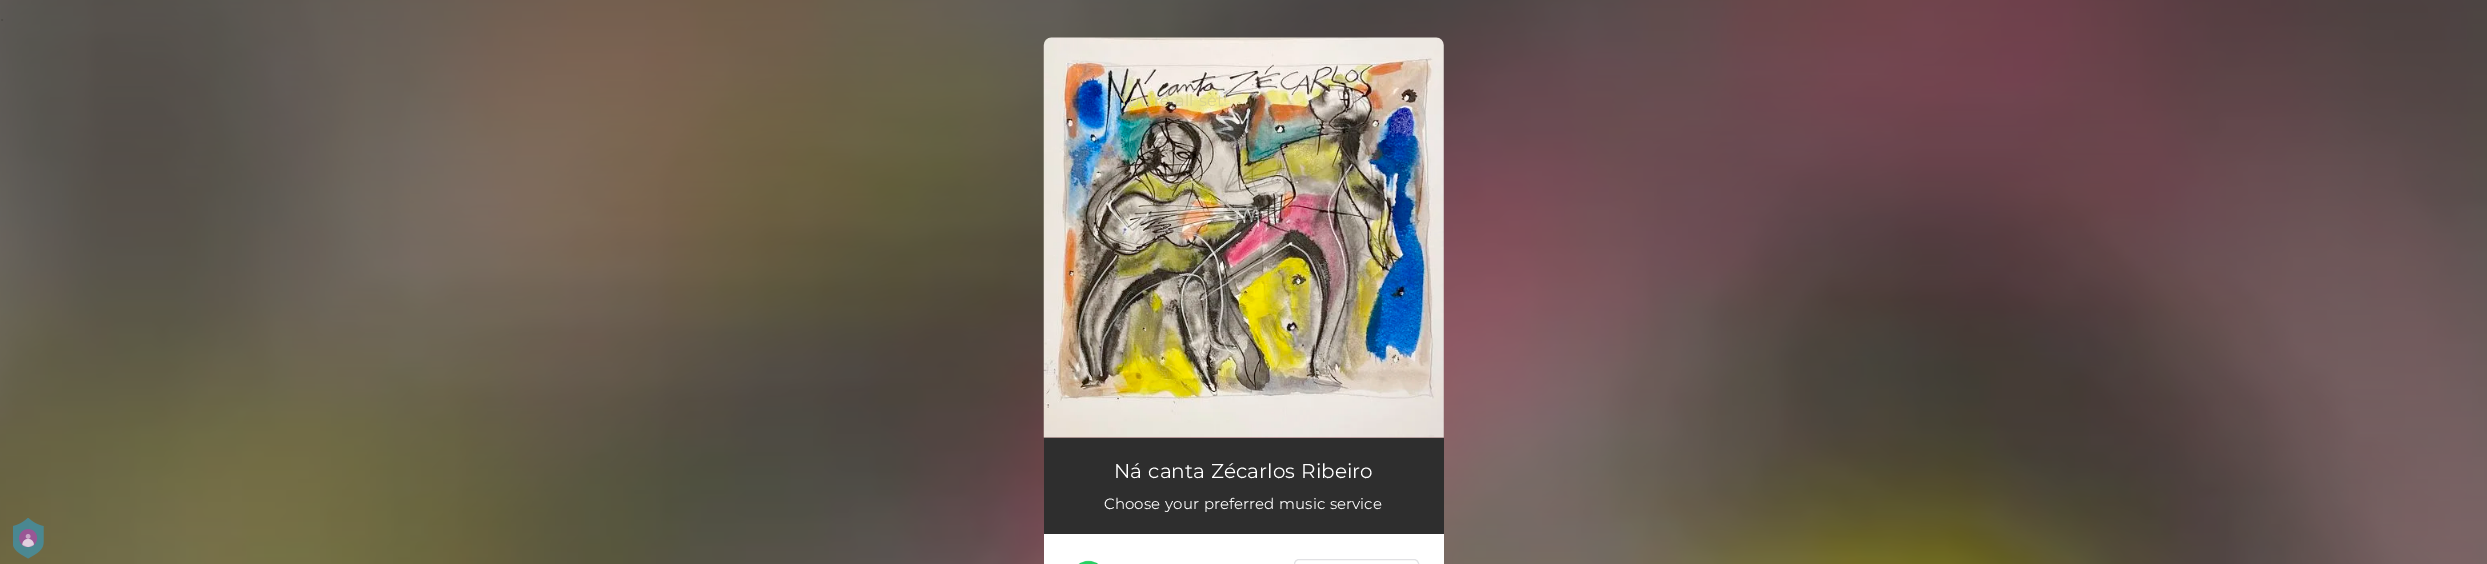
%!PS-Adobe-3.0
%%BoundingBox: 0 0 2487 564
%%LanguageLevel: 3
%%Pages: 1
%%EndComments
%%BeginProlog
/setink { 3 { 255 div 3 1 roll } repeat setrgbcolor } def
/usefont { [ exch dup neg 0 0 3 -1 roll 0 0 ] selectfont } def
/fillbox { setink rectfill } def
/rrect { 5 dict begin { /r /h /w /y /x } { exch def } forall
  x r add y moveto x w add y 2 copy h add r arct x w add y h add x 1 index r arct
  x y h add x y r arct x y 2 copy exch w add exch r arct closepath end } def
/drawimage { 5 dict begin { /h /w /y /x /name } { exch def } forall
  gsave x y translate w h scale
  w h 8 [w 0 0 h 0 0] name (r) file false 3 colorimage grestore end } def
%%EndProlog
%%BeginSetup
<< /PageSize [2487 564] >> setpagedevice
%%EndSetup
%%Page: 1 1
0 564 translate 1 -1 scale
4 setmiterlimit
0 0 2487 564 255 255 255 fillbox
(assets/img1.rgb) 0 0 2487 564 drawimage
(assets/img2.rgb) 1043 37 401 401 drawimage
/Montserrat-Regular 16.25 usefont
217 210 145 setink
1119 106 moveto 1 0 32 (You're all set!) widthshow
1044 438 400 96 46 46 46 fillbox
/Montserrat-Regular 20 usefont
255 255 255 setink
1114 478 moveto 1 0 32 (Ná canta Zécarlos Ribeiro) widthshow
/Montserrat-Regular 15 usefont
1104 509 moveto 1 0 32 (Choose your preferred music service) widthshow
1044 534 400 30 255 255 255 fillbox
(assets/img3.rgb) 1078 560 21 4 drawimage
225 225 228 setink
1294.5 559.5 124 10 4.5 rrect stroke
(assets/img4.rgb) 13 518 31 41 drawimage
showpage
%%EOF
